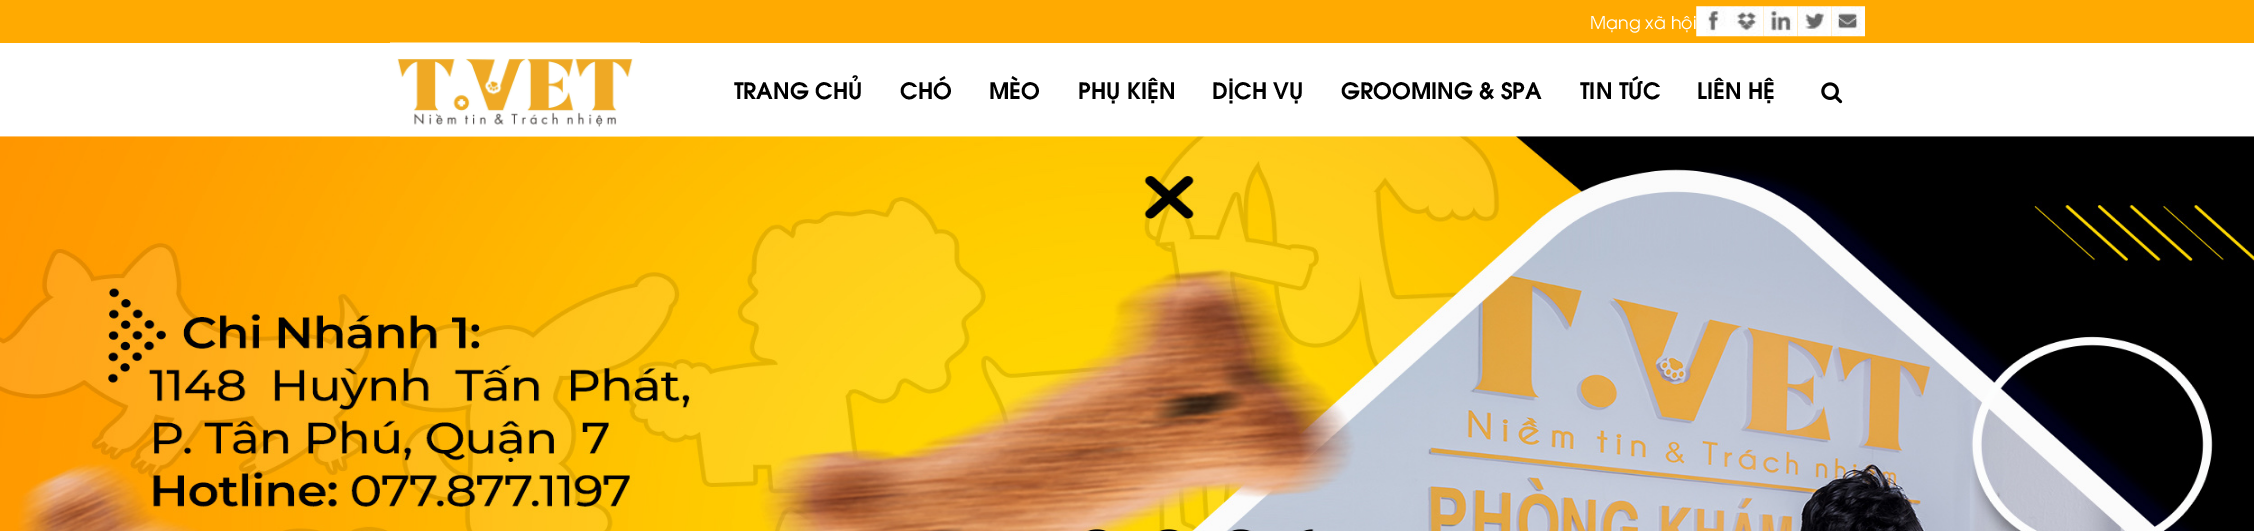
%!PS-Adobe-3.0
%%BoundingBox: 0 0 2254 531
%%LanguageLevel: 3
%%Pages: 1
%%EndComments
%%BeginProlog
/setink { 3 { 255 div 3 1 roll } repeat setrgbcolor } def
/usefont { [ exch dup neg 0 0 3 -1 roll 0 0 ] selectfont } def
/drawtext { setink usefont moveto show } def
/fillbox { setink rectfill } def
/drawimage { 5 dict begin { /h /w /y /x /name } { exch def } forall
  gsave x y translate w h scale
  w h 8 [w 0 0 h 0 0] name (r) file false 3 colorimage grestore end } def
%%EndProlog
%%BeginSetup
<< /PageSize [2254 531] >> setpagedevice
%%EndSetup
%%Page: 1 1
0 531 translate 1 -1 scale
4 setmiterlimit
0 0 2254 531 255 255 255 fillbox
0 0 2254 43 255 170 1 fillbox
(Mạng xã hội) 1590 29 /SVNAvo-Regular 17.5 255 255 255 drawtext
(assets/img1.rgb) 1696 6 34 31 drawimage
(assets/img2.rgb) 1730 6 34 31 drawimage
(assets/img3.rgb) 1763 6 35 31 drawimage
(assets/img4.rgb) 1797 6 35 31 drawimage
(assets/img5.rgb) 1831 6 34 31 drawimage
(assets/img8.rgb) 0 136 2254 395 drawimage
(assets/img6.rgb) 390 42 250 95 drawimage
(TRANG CHỦ) 734 99 /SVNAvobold-Bold 22.5 0 0 0 drawtext
(CHÓ) 900 99 /SVNAvobold-Bold 22.5 0 0 0 drawtext
(MÈO) 989 99 /SVNAvobold-Bold 22.5 0 0 0 drawtext
(PHỤ KIỆN) 1078 99 /SVNAvobold-Bold 22.5 0 0 0 drawtext
(DỊCH VỤ) 1212 99 /SVNAvobold-Bold 22.5 0 0 0 drawtext
(GROOMING & SPA) 1341 99 /SVNAvobold-Bold 22.5 0 0 0 drawtext
(TIN TỨC) 1580 99 /SVNAvobold-Bold 22.5 0 0 0 drawtext
(LIÊN HỆ) 1697 99 /SVNAvobold-Bold 22.5 0 0 0 drawtext
(assets/img7.rgb) 1821 82 22 22 drawimage
showpage
%%EOF
